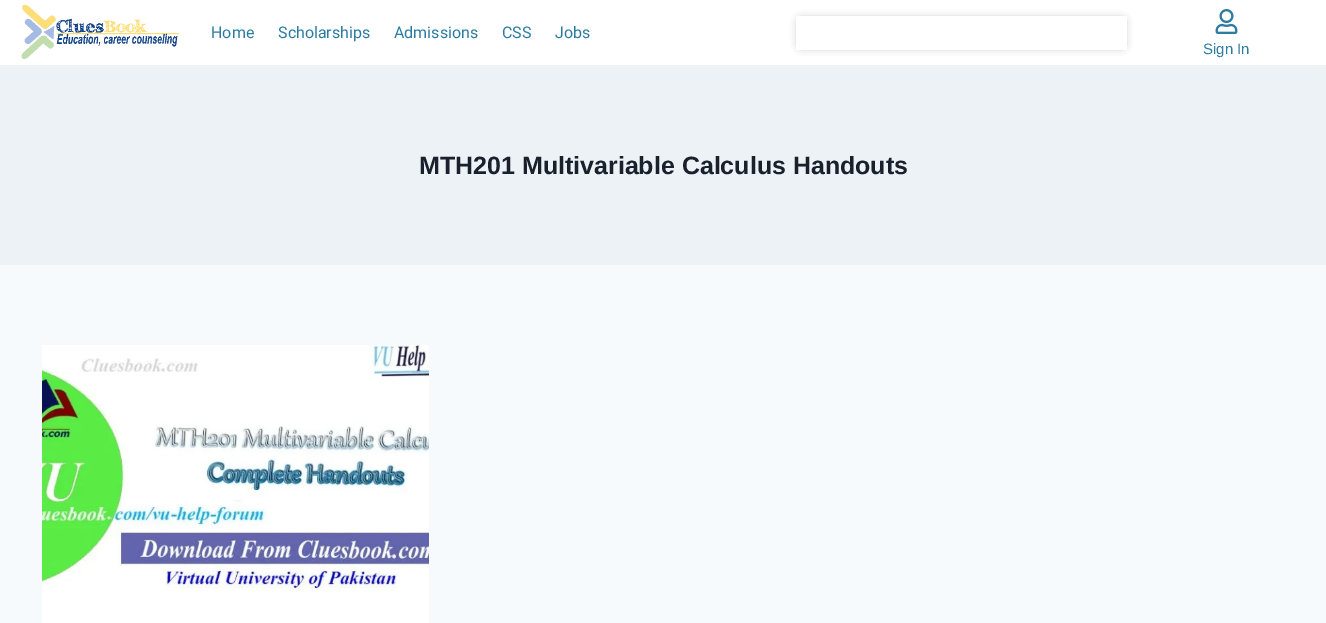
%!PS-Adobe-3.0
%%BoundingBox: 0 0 1326 623
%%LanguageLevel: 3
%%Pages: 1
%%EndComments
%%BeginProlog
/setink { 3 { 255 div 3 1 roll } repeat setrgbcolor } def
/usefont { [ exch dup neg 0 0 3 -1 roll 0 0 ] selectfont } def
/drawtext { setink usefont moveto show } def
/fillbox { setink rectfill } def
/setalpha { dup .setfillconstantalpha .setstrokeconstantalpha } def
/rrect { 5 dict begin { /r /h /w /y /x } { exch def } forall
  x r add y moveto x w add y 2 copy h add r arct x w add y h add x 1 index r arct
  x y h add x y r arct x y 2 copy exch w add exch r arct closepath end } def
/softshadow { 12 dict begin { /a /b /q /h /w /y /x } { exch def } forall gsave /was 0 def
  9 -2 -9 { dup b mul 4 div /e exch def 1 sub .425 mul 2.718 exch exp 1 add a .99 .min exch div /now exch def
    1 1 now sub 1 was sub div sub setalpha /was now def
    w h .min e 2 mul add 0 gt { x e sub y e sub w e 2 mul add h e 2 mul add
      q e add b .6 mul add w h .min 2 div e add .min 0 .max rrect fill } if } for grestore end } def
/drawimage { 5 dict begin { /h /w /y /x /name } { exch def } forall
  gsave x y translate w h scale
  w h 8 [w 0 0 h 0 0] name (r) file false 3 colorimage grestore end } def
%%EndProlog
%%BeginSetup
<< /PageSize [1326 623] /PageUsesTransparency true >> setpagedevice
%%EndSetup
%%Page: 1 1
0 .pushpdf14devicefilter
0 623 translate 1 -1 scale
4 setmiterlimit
0 0 1326 623 247 250 252 fillbox
0 0 1326 65 255 255 255 fillbox
(assets/img1.rgb) 21 5 158 54 drawimage
(Home) 211 38 /Roboto-Regular 16 44 123 160 drawtext
(Scholarships) 278 38 /Roboto-Regular 16 44 123 160 drawtext
(Admissions) 394 38 /Roboto-Regular 16 44 123 160 drawtext
(CSS) 502 38 /Roboto-Regular 16 44 123 160 drawtext
(Jobs) 555 38 /Roboto-Regular 16 44 123 160 drawtext
gsave
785 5 moveto 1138 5 lineto 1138 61 lineto 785 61 lineto closepath 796 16 moveto 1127 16 lineto 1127 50 lineto 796 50 lineto closepath eoclip newpath
0 0 0 setink
801 21 321 24 0 5 0.5 softshadow
grestore
(assets/img2.rgb) 1215 9 23 25 drawimage
(Sign In) 1203 54 /LiberationSans-Regular 15 44 123 160 drawtext
0 65 1326 200 237 242 247 fillbox
(MTH201 Multivariable Calculus Handouts) 419 174 /LiberationSans-Bold 25 26 32 44 drawtext
42 593 387 30 255 255 255 fillbox
(assets/img3.rgb) 42 345 387 248 drawimage
.poppdf14devicefilter showpage
%%EOF
